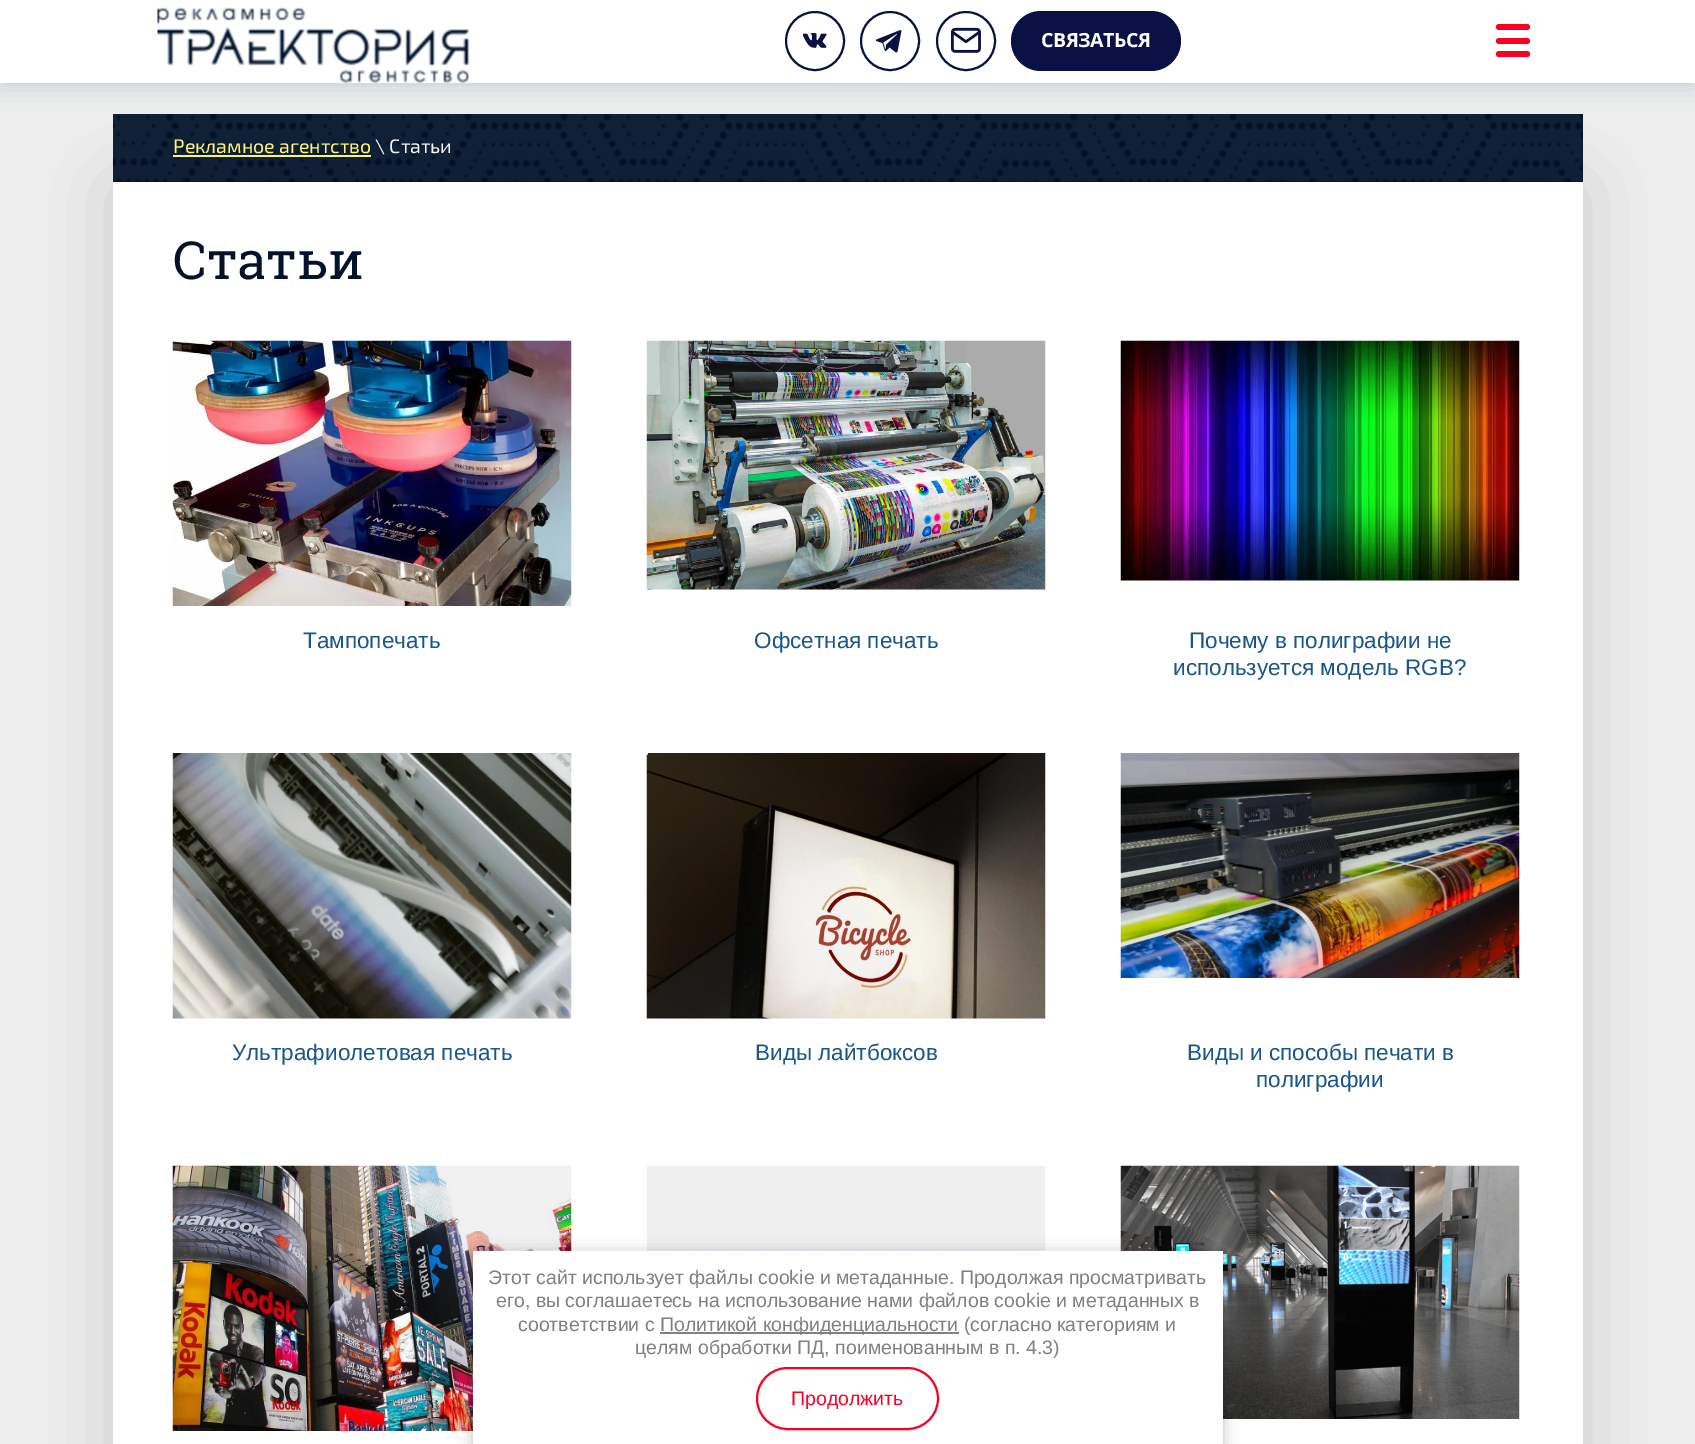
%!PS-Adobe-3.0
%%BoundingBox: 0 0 1695 1444
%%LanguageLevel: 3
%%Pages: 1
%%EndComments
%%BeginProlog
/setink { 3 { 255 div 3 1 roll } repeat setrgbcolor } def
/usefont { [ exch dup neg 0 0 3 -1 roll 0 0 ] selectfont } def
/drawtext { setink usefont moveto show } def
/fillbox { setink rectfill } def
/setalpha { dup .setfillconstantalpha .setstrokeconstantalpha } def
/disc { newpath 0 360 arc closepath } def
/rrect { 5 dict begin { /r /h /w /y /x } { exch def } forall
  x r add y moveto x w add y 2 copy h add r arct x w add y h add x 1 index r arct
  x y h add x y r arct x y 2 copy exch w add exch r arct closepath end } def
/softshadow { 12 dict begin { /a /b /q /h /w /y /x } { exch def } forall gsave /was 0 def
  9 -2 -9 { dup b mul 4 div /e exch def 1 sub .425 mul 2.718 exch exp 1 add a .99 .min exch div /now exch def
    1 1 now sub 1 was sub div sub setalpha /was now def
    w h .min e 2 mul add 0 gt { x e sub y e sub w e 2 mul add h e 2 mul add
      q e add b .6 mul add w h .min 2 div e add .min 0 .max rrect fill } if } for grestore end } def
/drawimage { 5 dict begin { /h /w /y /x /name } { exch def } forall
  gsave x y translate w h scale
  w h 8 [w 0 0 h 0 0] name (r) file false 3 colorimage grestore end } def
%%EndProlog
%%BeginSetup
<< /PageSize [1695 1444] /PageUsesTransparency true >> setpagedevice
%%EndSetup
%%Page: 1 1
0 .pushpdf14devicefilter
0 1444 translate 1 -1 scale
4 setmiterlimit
0 0 1695 1444 238 238 238 fillbox
113 114 1470 68 1 18 43 fillbox
(assets/img5.rgb) 112 114 1471 68 drawimage
107 134 153 setink
0 6 1695 83 0 11 0.25 softshadow
173 155 198 2 255 247 122 fillbox
0 0 0 setink
113 186 1470 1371 0 37.5 0.15 softshadow
0 0 1695 83 255 255 255 fillbox
(assets/img1.rgb) 157 7 313 76 drawimage
10 17 69 setink
2 setlinewidth
815 41 29 disc stroke
(assets/img2.rgb) 803 33 24 15 drawimage
890 41 29 disc stroke
(assets/img3.rgb) 876 30 26 23 drawimage
(assets/img4.rgb) 951 27 30 26 drawimage
966 41 29 disc stroke
1011 11 170 60 30 rrect fill
/OpenSans-Bold 19.5 usefont
255 255 255 setink
1041 47 moveto -0.5 0 (СВЯЗАТЬСЯ) ashow
250 1 35 setink
1496 24 34 6 3 rrect fill
1496 38 34 6 3 rrect fill
1496 51 34 6 3 rrect fill
(Рекламное агентство) 173 153 /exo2-Regular 19.5 255 247 122 drawtext
(\\ Статьи) 375 153 /exo2-Regular 19.5 246 246 246 drawtext
113 182 1470 1262 255 255 255 fillbox
(Статьи) 173 279 /RobotoSlab-Regular 52.5 2 19 42 drawtext
(assets/img6.rgb) 172 340 400 266 drawimage
(Тампопечать) 303 648 /LiberationSans-Regular 22.5 25 86 139 drawtext
(assets/img7.rgb) 646 340 400 250 drawimage
(Офсетная печать) 754 648 /LiberationSans-Regular 22.5 25 86 139 drawtext
(assets/img8.rgb) 1120 340 400 241 drawimage
(Почему в полиграфии не) 1189 648 /LiberationSans-Regular 22.5 25 86 139 drawtext
(используется модель RGB?) 1173 675 /LiberationSans-Regular 22.5 25 86 139 drawtext
(assets/img9.rgb) 172 753 400 266 drawimage
(Ультрафиолетовая печать) 232 1060 /LiberationSans-Regular 22.5 25 86 139 drawtext
(assets/img10.rgb) 646 753 400 266 drawimage
(Виды лайтбоксов) 755 1060 /LiberationSans-Regular 22.5 25 86 139 drawtext
(assets/img11.rgb) 1120 753 400 225 drawimage
(Виды и способы печати в) 1187 1060 /LiberationSans-Regular 22.5 25 86 139 drawtext
(полиграфии) 1256 1087 /LiberationSans-Regular 22.5 25 86 139 drawtext
(assets/img12.rgb) 172 1165 400 266 drawimage
(assets/img13.rgb) 647 1165 399 86 drawimage
(assets/img14.rgb) 1120 1165 400 254 drawimage
0 0 0 setink
473 1253 750 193 0 7.5 0.23 softshadow
473 1251 750 193 255 255 255 fillbox
(Этот сайт использует файлы cookie и метаданные. Продолжая просматривать) 488 1284 /LiberationSans-Regular 19.5 128 128 128 drawtext
(его, вы соглашаетесь на использование нами файлов cookie и метаданных в) 496 1307 /LiberationSans-Regular 19.5 128 128 128 drawtext
(соответствии с) 518 1331 /LiberationSans-Regular 19.5 128 128 128 drawtext
660 1332 299 2 128 128 128 fillbox
(Политикой конфиденциальности \(согласно категориям и) 660 1331 /LiberationSans-Regular 19.5 128 128 128 drawtext
(целям обработки ПД, поименованным в п. 4.3\)) 635 1354 /LiberationSans-Regular 19.5 128 128 128 drawtext
250 1 35 setink
757 1368 181 61 30.5 rrect stroke
(Продолжить) 791 1405 /LiberationSans-Regular 19.5 250 1 35 drawtext
.poppdf14devicefilter showpage
%%EOF
